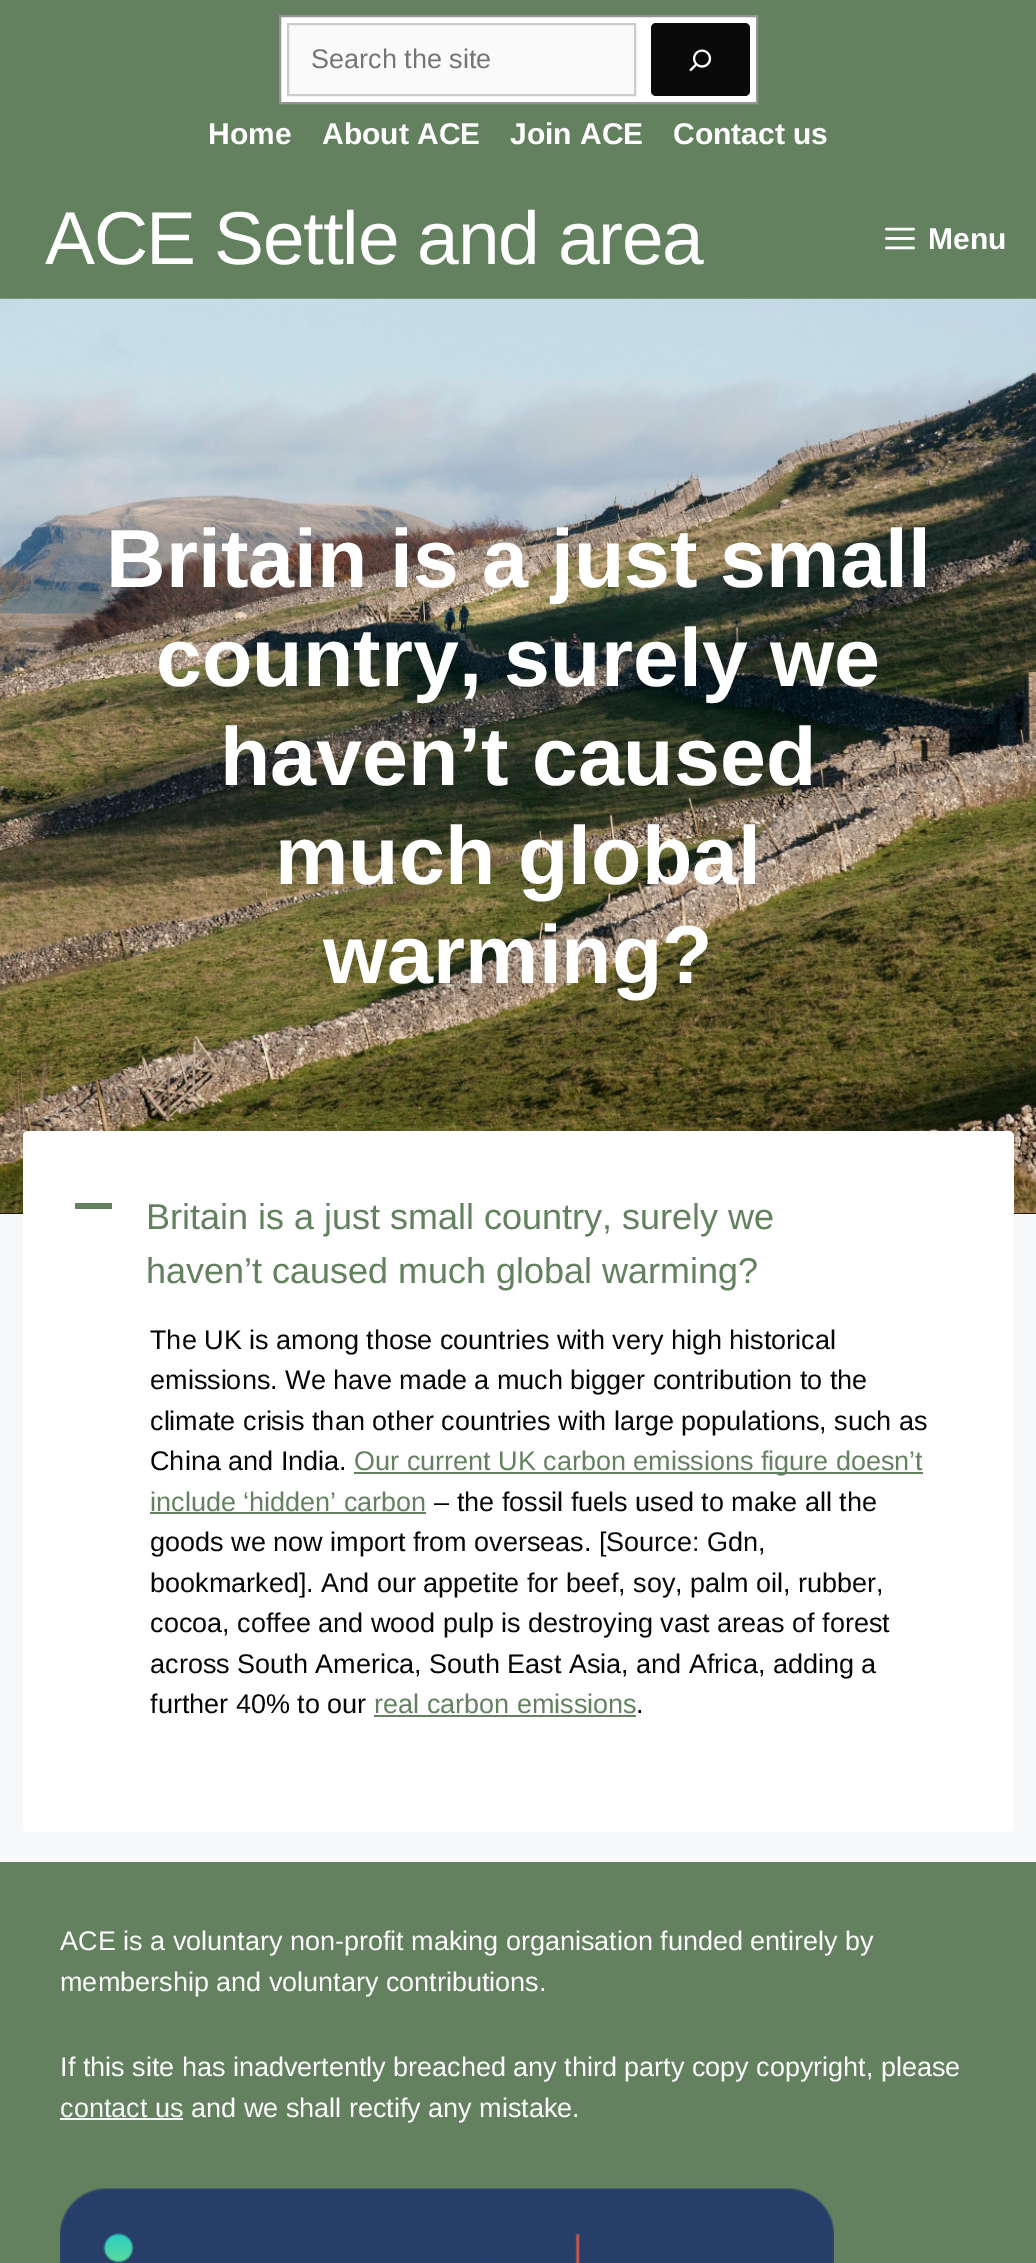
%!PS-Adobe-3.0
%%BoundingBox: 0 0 1036 2263
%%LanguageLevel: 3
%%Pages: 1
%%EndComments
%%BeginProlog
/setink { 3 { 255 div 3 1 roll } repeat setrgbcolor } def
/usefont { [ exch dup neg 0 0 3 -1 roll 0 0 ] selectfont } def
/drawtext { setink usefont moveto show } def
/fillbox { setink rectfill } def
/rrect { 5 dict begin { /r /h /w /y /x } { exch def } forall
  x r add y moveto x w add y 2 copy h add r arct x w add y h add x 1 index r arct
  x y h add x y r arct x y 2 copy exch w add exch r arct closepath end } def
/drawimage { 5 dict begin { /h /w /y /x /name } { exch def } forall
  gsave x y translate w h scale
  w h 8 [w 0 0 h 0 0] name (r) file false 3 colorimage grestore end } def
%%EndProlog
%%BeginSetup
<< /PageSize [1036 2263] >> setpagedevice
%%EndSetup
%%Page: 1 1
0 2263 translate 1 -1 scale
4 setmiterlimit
0 0 1036 2263 247 248 249 fillbox
0 0 1036 299 99 129 95 fillbox
255 255 255 setink
280 16 moveto 757 16 lineto 757 103 lineto 280 103 lineto closepath gsave fill grestore
148 148 148 setink
2 setlinewidth
stroke
250 250 250 setink
288 24 moveto 635 24 lineto 635 95 lineto 288 95 lineto closepath gsave fill grestore
204 204 204 setink
stroke
(Search the site) 311 68 /LiberationSans-Regular 27 117 117 117 drawtext
10 10 10 setink
651 23 99 73 5 rrect fill
(assets/img1.rgb) 689 49 23 23 drawimage
(Home) 208 144 /LiberationSans-Bold 30 255 255 255 drawtext
(About ACE) 322 144 /LiberationSans-Bold 30 255 255 255 drawtext
(Join ACE) 510 144 /LiberationSans-Bold 30 255 255 255 drawtext
(Contact us) 673 144 /LiberationSans-Bold 30 255 255 255 drawtext
/LiberationSans-Regular 75 usefont
45 264 moveto -1.4 0 (ACE Settle and area) ashow
(assets/img2.rgb) 885 227 30 23 drawimage
(Menu) 928 249 /LiberationSans-Bold 30 255 255 255 drawtext
0 299 1036 915 0 0 0 fillbox
(assets/img3.rgb) 0 298 1036 916 drawimage
(Britain is a just small) 106 587 /LiberationSans-Bold 82.5 255 255 255 drawtext
(country, surely we) 156 686 /LiberationSans-Bold 82.5 255 255 255 drawtext
(haven’t caused) 220 785 /LiberationSans-Bold 82.5 255 255 255 drawtext
(much global) 275 884 /LiberationSans-Bold 82.5 255 255 255 drawtext
(warming?) 323 983 /LiberationSans-Bold 82.5 255 255 255 drawtext
23 1131 991 701 5 rrect fill
75 1203 37 6 99 129 95 fillbox
(Britain is a just small country, surely we) 146 1229 /LiberationSans-Regular 36 99 129 95 drawtext
(haven’t caused much global warming?) 146 1283 /LiberationSans-Regular 36 99 129 95 drawtext
(The UK is among those countries with very high historical) 150 1349 /LiberationSans-Regular 27 6 6 6 drawtext
(emissions. We have made a much bigger contribution to the) 150 1389 /LiberationSans-Regular 27 6 6 6 drawtext
(climate crisis than other countries with large populations, such as) 150 1430 /LiberationSans-Regular 27 6 6 6 drawtext
(China and India.) 150 1470 /LiberationSans-Regular 27 6 6 6 drawtext
354 1472 569 2 99 129 95 fillbox
(Our current UK carbon emissions figure doesn’t) 354 1470 /LiberationSans-Regular 27 99 129 95 drawtext
(include ‘hidden’ carbon) 150 1511 /LiberationSans-Regular 27 99 129 95 drawtext
150 1512 276 2 99 129 95 fillbox
(– the fossil fuels used to make all the) 434 1511 /LiberationSans-Regular 27 6 6 6 drawtext
(goods we now import from overseas. [Source: Gdn,) 150 1551 /LiberationSans-Regular 27 6 6 6 drawtext
(bookmarked]. And our appetite for beef, soy, palm oil, rubber,) 150 1592 /LiberationSans-Regular 27 6 6 6 drawtext
(cocoa, coffee and wood pulp is destroying vast areas of forest) 150 1632 /LiberationSans-Regular 27 6 6 6 drawtext
(across South America, South East Asia, and Africa, adding a) 150 1673 /LiberationSans-Regular 27 6 6 6 drawtext
(further 40% to our) 150 1713 /LiberationSans-Regular 27 6 6 6 drawtext
(real carbon emissions) 374 1713 /LiberationSans-Regular 27 99 129 95 drawtext
374 1715 262 2 99 129 95 fillbox
(.) 636 1713 /LiberationSans-Regular 27 6 6 6 drawtext
0 1862 1036 401 99 129 95 fillbox
(ACE is a voluntary non-profit making organisation funded entirely by) 60 1950 /LiberationSans-Regular 27 255 255 255 drawtext
(membership and voluntary contributions.) 60 1991 /LiberationSans-Regular 27 255 255 255 drawtext
(If this site has inadvertently breached any third party copy copyright, please) 60 2076 /LiberationSans-Regular 27 255 255 255 drawtext
(contact us) 60 2117 /LiberationSans-Regular 27 247 248 249 drawtext
60 2118 123 2 247 248 249 fillbox
(and we shall rectify any mistake.) 191 2117 /LiberationSans-Regular 27 255 255 255 drawtext
(assets/img4.rgb) 60 2188 774 75 drawimage
showpage
%%EOF
